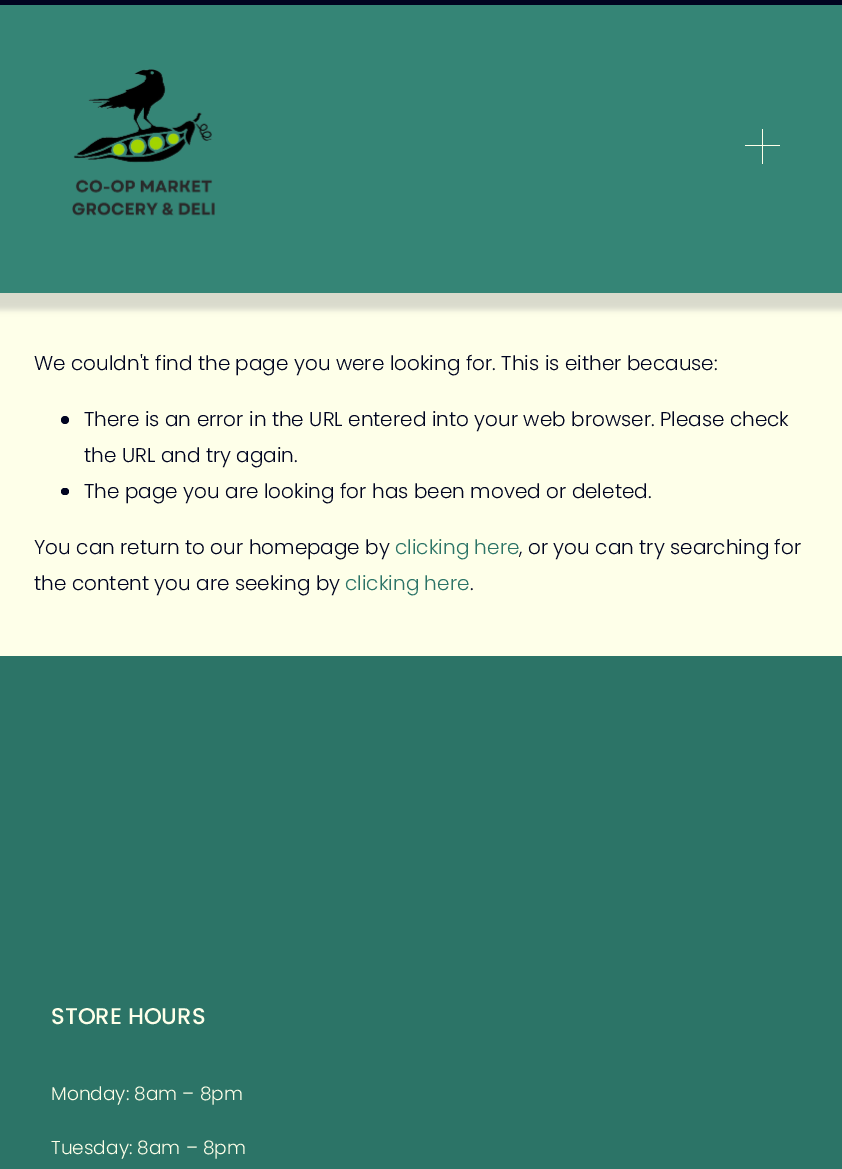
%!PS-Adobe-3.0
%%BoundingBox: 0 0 842 1169
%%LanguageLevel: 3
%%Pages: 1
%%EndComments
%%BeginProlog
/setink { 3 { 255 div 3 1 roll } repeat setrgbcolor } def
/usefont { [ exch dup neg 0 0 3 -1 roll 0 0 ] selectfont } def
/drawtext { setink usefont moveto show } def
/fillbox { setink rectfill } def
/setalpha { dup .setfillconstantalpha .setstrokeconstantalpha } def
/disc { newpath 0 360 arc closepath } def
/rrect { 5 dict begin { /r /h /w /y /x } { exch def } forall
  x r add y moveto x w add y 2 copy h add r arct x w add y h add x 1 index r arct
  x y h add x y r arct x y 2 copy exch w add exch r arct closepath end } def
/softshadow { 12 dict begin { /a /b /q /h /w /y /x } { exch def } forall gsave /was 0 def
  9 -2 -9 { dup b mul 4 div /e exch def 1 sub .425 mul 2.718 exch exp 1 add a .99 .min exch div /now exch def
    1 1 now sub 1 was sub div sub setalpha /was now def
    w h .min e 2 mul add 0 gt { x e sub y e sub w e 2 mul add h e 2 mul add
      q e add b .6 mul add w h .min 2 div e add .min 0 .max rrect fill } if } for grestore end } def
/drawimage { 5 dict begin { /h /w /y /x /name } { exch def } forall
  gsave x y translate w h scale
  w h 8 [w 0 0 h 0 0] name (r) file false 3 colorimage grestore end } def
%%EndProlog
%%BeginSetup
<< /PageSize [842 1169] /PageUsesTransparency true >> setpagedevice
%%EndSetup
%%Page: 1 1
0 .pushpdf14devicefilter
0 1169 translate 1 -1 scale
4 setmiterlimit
0 0 842 1169 254 255 233 fillbox
216 217 203 setink
-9 -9 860 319 0 3 1 softshadow
0 0 842 5 0 4 32 fillbox
0 5 842 288 53 133 118 fillbox
(assets/img1.rgb) 72 69 143 147 drawimage
745 145 35 1 254 255 233 fillbox
762 129 1 35 254 255 233 fillbox
(We couldn't find the page you were looking for. This is either because:) 34 370 /Poppins-Light 20 0 4 32 drawtext
65 420 4 disc fill
(There is an error in the URL entered into your web browser. Please check) 84 426 /Poppins-Light 20 0 4 32 drawtext
(the URL and try again.) 84 462 /Poppins-Light 20 0 4 32 drawtext
61 488 8 7 3.5 rrect fill
(The page you are looking for has been moved or deleted.) 84 498 /Poppins-Light 20 0 4 32 drawtext
(You can return to our homepage by) 34 554 /Poppins-Light 20 0 4 32 drawtext
(clicking here) 395 554 /Poppins-Light 20 44 116 103 drawtext
(, or you can try searching for) 519 554 /Poppins-Light 20 0 4 32 drawtext
(the content you are seeking by) 34 590 /Poppins-Light 20 0 4 32 drawtext
(clicking here) 345 590 /Poppins-Light 20 44 116 103 drawtext
(.) 470 590 /Poppins-Light 20 0 4 32 drawtext
0 656 842 513 44 116 103 fillbox
(STORE HOURS) 51 1024 /Poppins-Medium 22.75 254 255 233 drawtext
(Monday: 8am – 8pm) 51 1100 /Poppins-Light 18.6 254 255 233 drawtext
(Tuesday: 8am – 8pm) 51 1154 /Poppins-Light 18.6 254 255 233 drawtext
.poppdf14devicefilter showpage
%%EOF
